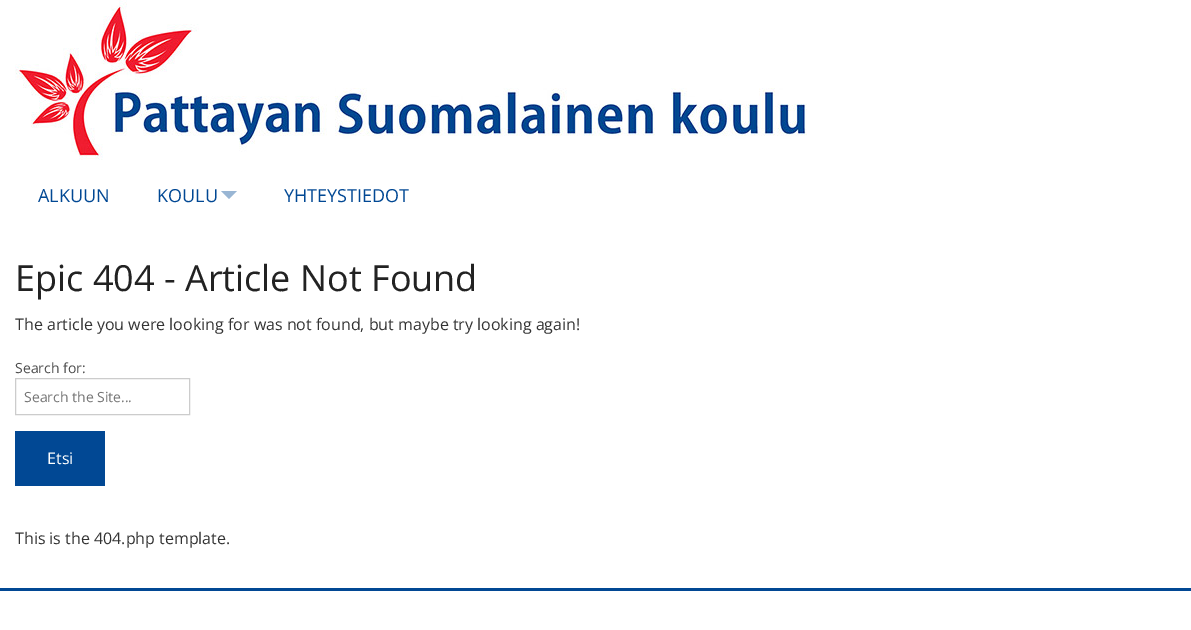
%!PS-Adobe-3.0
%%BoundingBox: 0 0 1191 630
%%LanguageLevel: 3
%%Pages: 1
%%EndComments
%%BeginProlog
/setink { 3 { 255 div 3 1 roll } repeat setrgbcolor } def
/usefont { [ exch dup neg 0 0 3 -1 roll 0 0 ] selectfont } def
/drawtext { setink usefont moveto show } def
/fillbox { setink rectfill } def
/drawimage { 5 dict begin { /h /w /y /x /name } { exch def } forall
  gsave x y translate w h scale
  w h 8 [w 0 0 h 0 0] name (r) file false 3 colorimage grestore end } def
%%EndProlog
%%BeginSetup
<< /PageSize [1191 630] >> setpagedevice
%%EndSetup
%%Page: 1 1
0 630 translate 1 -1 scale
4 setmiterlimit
0 0 1191 630 255 255 255 fillbox
(assets/img1.rgb) 15 0 792 160 drawimage
(ALKUUN) 38 202 /OpenSans-Regular 18 1 72 148 drawtext
(KOULU) 157 202 /OpenSans-Regular 18 1 72 148 drawtext
153 182 212 setink
221 191 moveto 237 191 lineto 229 199 lineto closepath fill
(YHTEYSTIEDOT) 284 202 /OpenSans-Regular 18 1 72 148 drawtext
(Epic 404 - Article Not Found) 15 291 /OpenSans-Regular 36 34 34 34 drawtext
(The article you were looking for was not found, but maybe try looking again!) 15 330 /OpenSans-Regular 16 51 51 51 drawtext
(Search for:) 15 373 /OpenSans-Regular 14 77 77 77 drawtext
204 204 204 setink
15.5 378.5 174 36 rectstroke
(Search the Site...) 24 402 /OpenSans-Regular 14 117 117 117 drawtext
15 431 90 55 1 72 148 fillbox
(Etsi) 47 464 /OpenSans-Regular 16 255 255 255 drawtext
(This is the 404.php template.) 15 544 /OpenSans-Regular 16 51 51 51 drawtext
0 588 1191 3 1 72 148 fillbox
showpage
%%EOF
